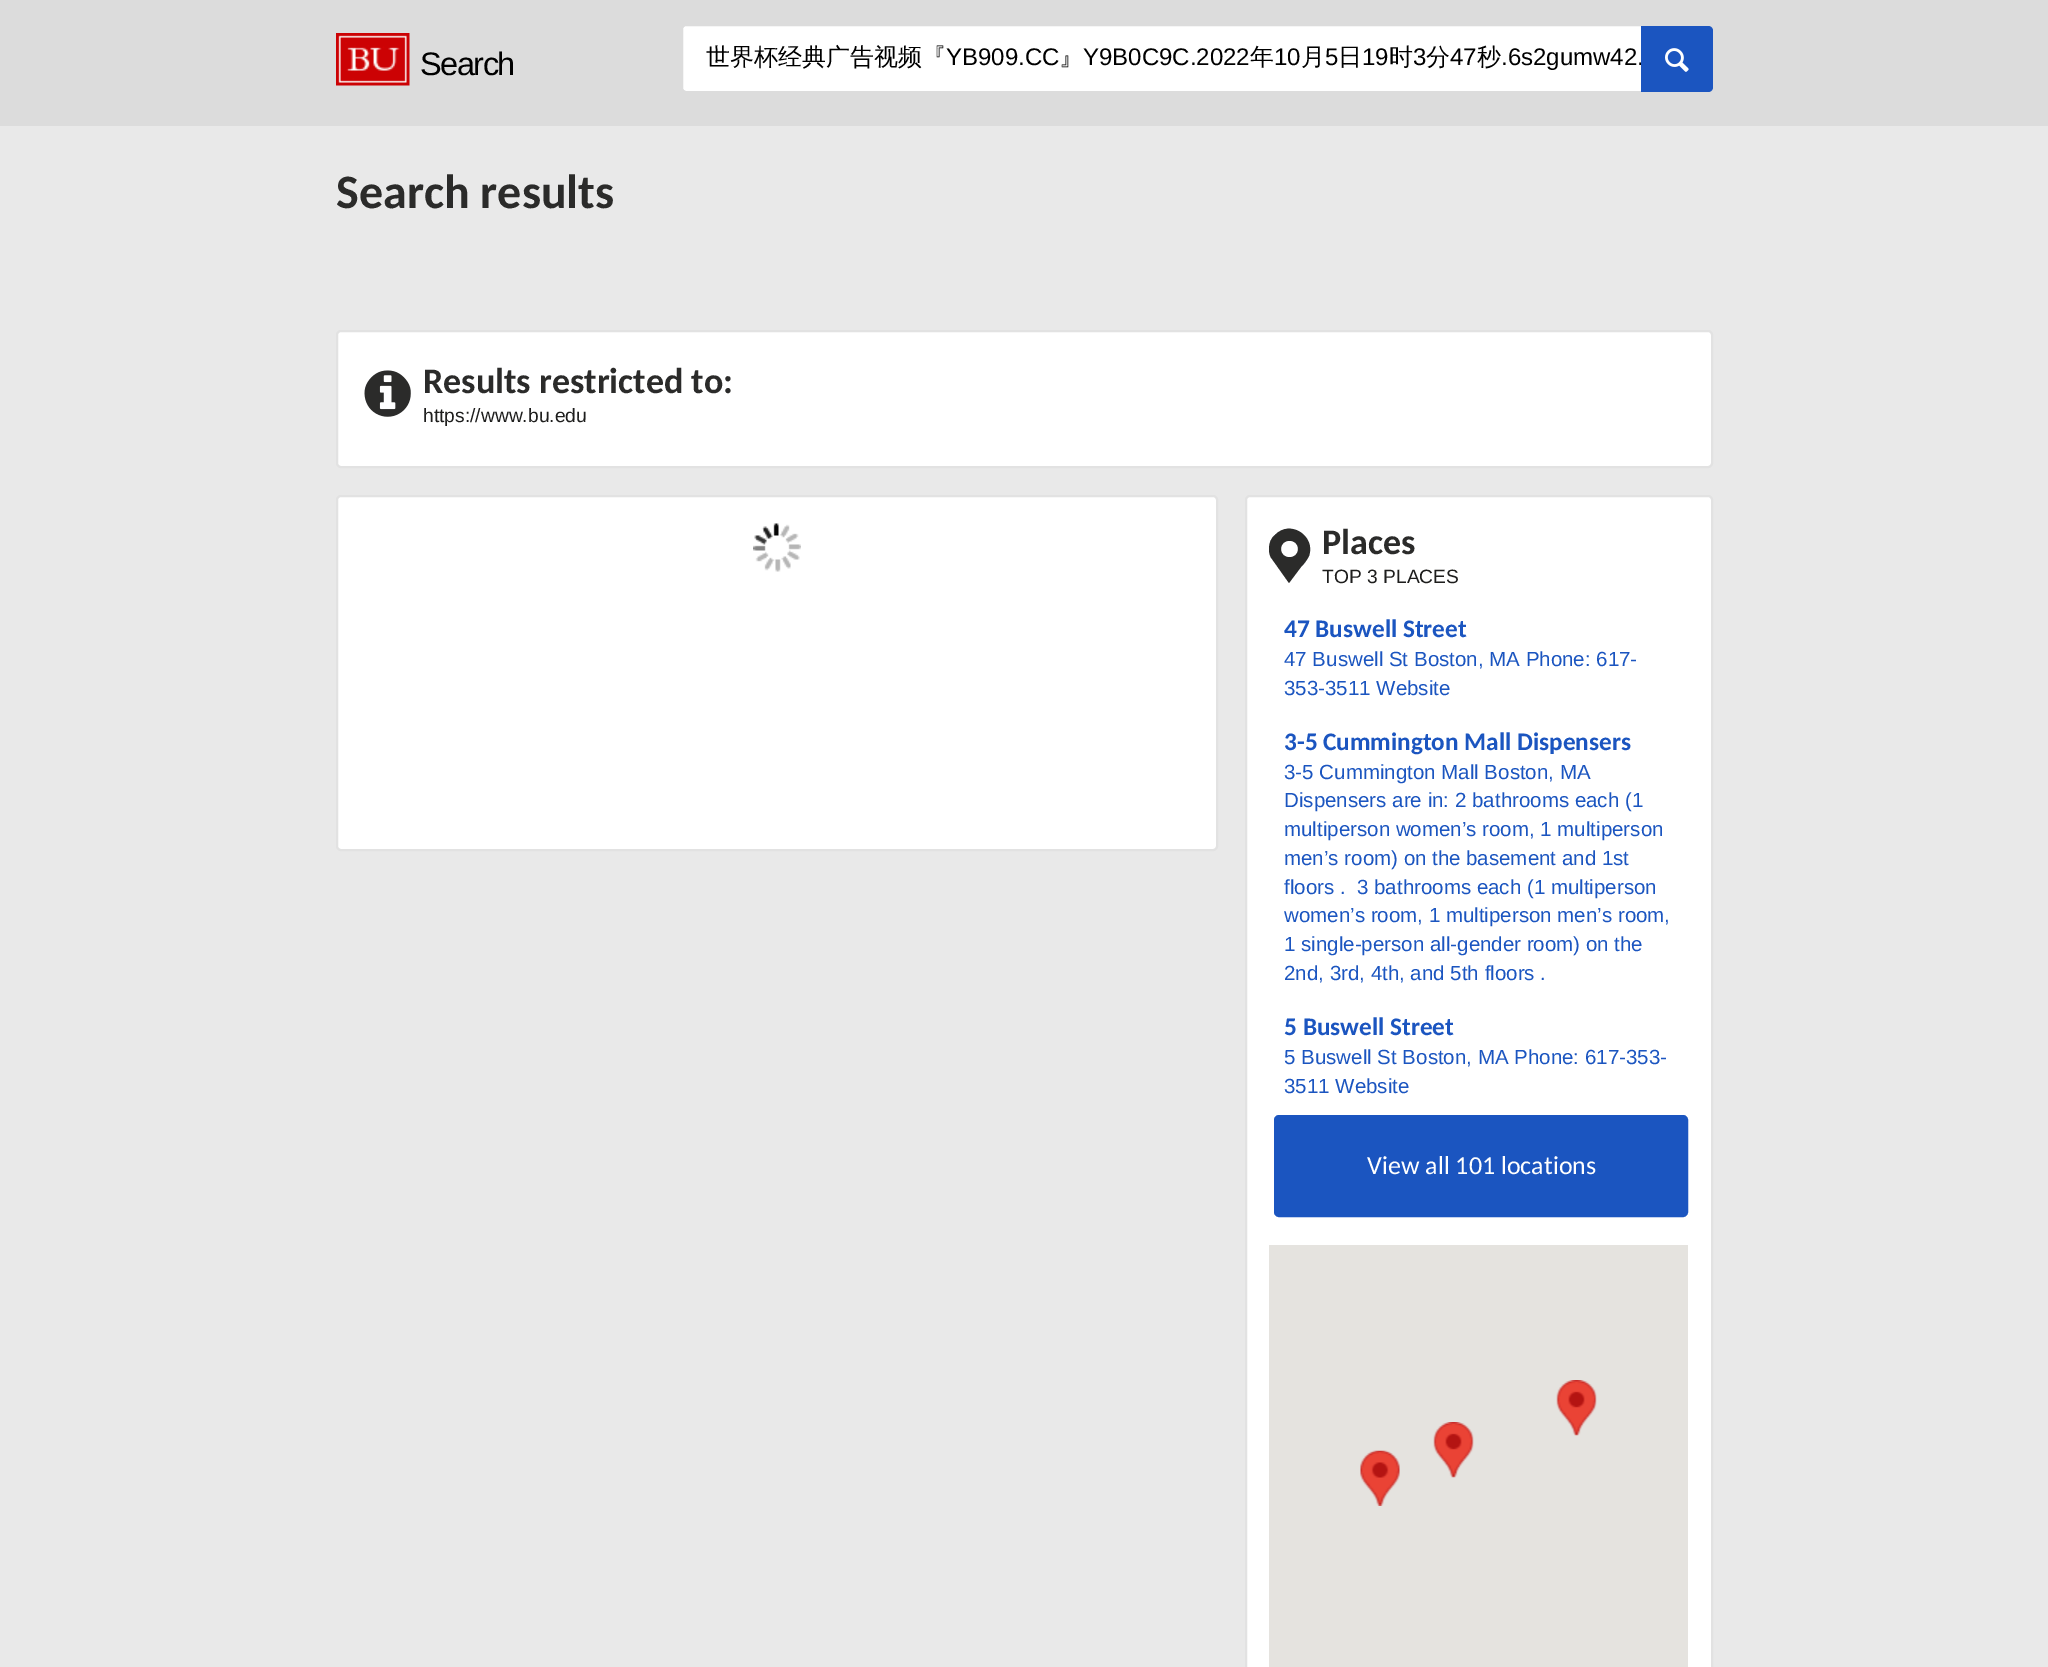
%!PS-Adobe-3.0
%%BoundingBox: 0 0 2048 1667
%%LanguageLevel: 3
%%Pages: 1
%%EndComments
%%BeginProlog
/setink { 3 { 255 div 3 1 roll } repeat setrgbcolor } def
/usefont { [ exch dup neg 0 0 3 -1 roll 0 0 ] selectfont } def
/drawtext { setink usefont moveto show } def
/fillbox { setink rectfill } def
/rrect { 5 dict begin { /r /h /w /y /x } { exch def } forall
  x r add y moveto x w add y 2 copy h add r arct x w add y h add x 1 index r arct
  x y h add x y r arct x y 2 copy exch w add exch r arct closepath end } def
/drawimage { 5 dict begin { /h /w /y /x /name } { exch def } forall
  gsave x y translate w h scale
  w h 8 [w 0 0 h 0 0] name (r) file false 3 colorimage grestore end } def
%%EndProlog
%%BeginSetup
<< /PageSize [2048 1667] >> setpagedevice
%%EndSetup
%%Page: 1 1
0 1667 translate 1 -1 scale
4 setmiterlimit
0 0 2048 1667 233 233 233 fillbox
0 0 2048 126 220 220 220 fillbox
(assets/img1.rgb) 336 33 74 53 drawimage
/LiberationSans-Regular 32.5 usefont
0 0 0 setink
420 75 moveto -1.5 0 (Search) ashow
255 255 255 setink
686 25 moveto 1681 25 lineto 1681 92 lineto 686 92 lineto 684 92 682 90 682 88 curveto 682 29 lineto 682 27 684 25 686 25 curveto closepath gsave fill grestore
220 220 220 setink
2 setlinewidth
stroke
(世界杯经典广告视频『) 706 65 /WenQuanYiZenHei-Medium 24 0 0 0 drawtext
(YB909.CC) 946 65 /LiberationSans-Regular 24 0 0 0 drawtext
(』) 1059 65 /WenQuanYiZenHei-Medium 24 0 0 0 drawtext
(Y9B0C9C.2022) 1083 65 /LiberationSans-Regular 24 0 0 0 drawtext
(年) 1250 65 /WenQuanYiZenHei-Medium 24 0 0 0 drawtext
(10) 1274 65 /LiberationSans-Regular 24 0 0 0 drawtext
(月) 1301 65 /WenQuanYiZenHei-Medium 24 0 0 0 drawtext
(5) 1325 65 /LiberationSans-Regular 24 0 0 0 drawtext
(日) 1338 65 /WenQuanYiZenHei-Medium 24 0 0 0 drawtext
(19) 1362 65 /LiberationSans-Regular 24 0 0 0 drawtext
(时) 1389 65 /WenQuanYiZenHei-Medium 24 0 0 0 drawtext
(3) 1413 65 /LiberationSans-Regular 24 0 0 0 drawtext
(分) 1426 65 /WenQuanYiZenHei-Medium 24 0 0 0 drawtext
(47) 1450 65 /LiberationSans-Regular 24 0 0 0 drawtext
(秒) 1477 65 /WenQuanYiZenHei-Medium 24 0 0 0 drawtext
(.6s2gumw42.) 1501 65 /LiberationSans-Regular 24 0 0 0 drawtext
27 85 192 setink
1641 26 moveto 1708 26 lineto 1711 26 1713 28 1713 31 curveto 1713 87 lineto 1713 90 1711 92 1708 92 curveto 1641 92 lineto closepath fill
(assets/img2.rgb) 1665 48 24 24 drawimage
(Search results) 336 208 /Carlito-Bold 48 43 43 42 drawtext
255 255 255 setink
337 331 1375 136 4 rrect gsave fill grestore
226 226 226 setink
stroke
(assets/img3.rgb) 364 370 47 47 drawimage
(Results restricted to:) 423 393 /Carlito-Bold 36 43 43 42 drawtext
(https://www.bu.edu) 423 422 /LiberationSans-Regular 19.25 30 30 29 drawtext
255 255 255 setink
337 496 880 354 4 rrect gsave fill grestore
226 226 226 setink
stroke
(assets/img4.rgb) 753 523 48 49 drawimage
255 255 255 setink
1246 496 466 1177 4 rrect gsave fill grestore
226 226 226 setink
stroke
43 43 42 setink
1269 549 moveto 1269 543 1271 538 1275 535 curveto 1290 519 1316 536 1309 556 curveto 1307 560 1304 564 1301 567 curveto 1289 583 lineto 1272 559 lineto 1270 557 1269 553 1269 549 curveto closepath 1281 549 moveto 1281 560 1298 560 1298 549 curveto 1298 538 1281 538 1281 549 curveto closepath fill
(Places) 1322 554 /Carlito-Bold 36 43 43 42 drawtext
(TOP 3 PLACES) 1322 583 /LiberationSans-Regular 19.25 30 30 29 drawtext
(47 Buswell Street) 1284 637 /Carlito-Bold 25.25 27 85 192 drawtext
(47 Buswell St Boston, MA Phone: 617-) 1284 666 /LiberationSans-Regular 20.5 27 85 192 drawtext
(353-3511 Website) 1284 695 /LiberationSans-Regular 20.5 27 85 192 drawtext
(3-5 Cummington Mall Dispensers) 1284 750 /Carlito-Bold 25.25 27 85 192 drawtext
(3-5 Cummington Mall Boston, MA) 1284 779 /LiberationSans-Regular 20.5 27 85 192 drawtext
(Dispensers are in:) 1284 807 /LiberationSans-Regular 20.5 27 85 192 drawtext
(2 bathrooms each \(1) 1455 807 /LiberationSans-Regular 20.5 27 85 192 drawtext
(multiperson women’s room, 1 multiperson) 1284 836 /LiberationSans-Regular 20.5 27 85 192 drawtext
(men’s room\) on the) 1284 865 /LiberationSans-Regular 20.5 27 85 192 drawtext
(basement and 1st) 1466 865 /LiberationSans-Regular 20.5 27 85 192 drawtext
(floors .) 1284 894 /LiberationSans-Regular 20.5 27 85 192 drawtext
(3 bathrooms each \(1 multiperson) 1357 894 /LiberationSans-Regular 20.5 27 85 192 drawtext
(women’s room, 1 multiperson men’s room,) 1284 922 /LiberationSans-Regular 20.5 27 85 192 drawtext
(1 single-person all-gender room\) on the) 1284 951 /LiberationSans-Regular 20.5 27 85 192 drawtext
(2nd, 3rd, 4th, and 5th floors .) 1284 980 /LiberationSans-Regular 20.5 27 85 192 drawtext
(5 Buswell Street) 1284 1035 /Carlito-Bold 25.25 27 85 192 drawtext
(5 Buswell St Boston, MA Phone: 617-353-) 1284 1064 /LiberationSans-Regular 20.5 27 85 192 drawtext
(3511 Website) 1284 1093 /LiberationSans-Regular 20.5 27 85 192 drawtext
1275 1116 412 100 4 rrect gsave fill grestore
stroke
(View all 101 locations) 1367 1174 /Carlito-Regular 26 255 255 255 drawtext
1269 1245 419 422 229 227 223 fillbox
(assets/img5.rgb) 1556 1380 41 56 drawimage
(assets/img6.rgb) 1360 1450 40 56 drawimage
(assets/img5.rgb) 1433 1422 41 56 drawimage
showpage
%%EOF
